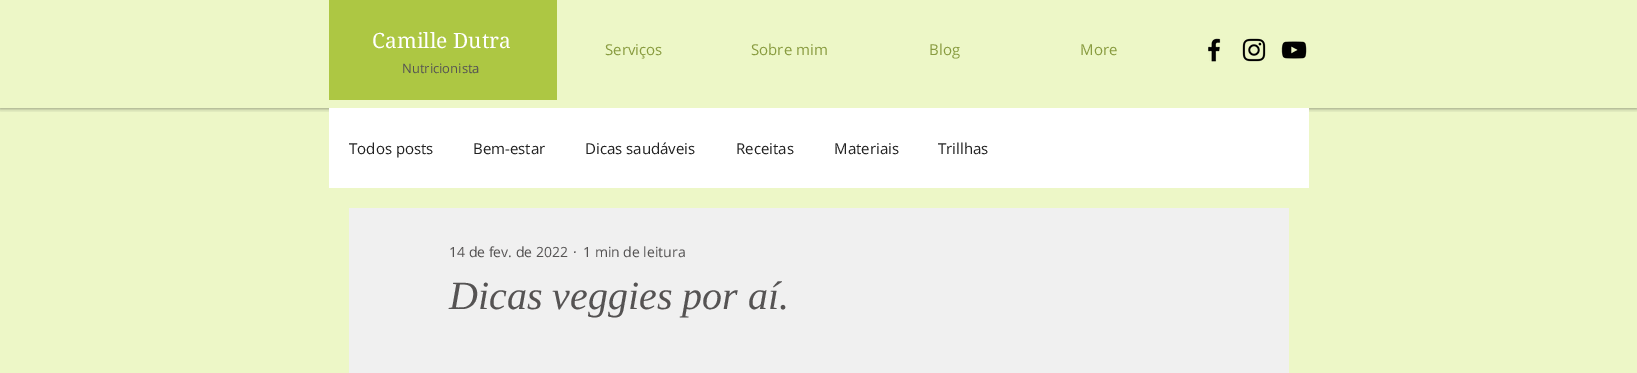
%!PS-Adobe-3.0
%%BoundingBox: 0 0 1637 373
%%LanguageLevel: 3
%%Pages: 1
%%EndComments
%%BeginProlog
/setink { 3 { 255 div 3 1 roll } repeat setrgbcolor } def
/usefont { [ exch dup neg 0 0 3 -1 roll 0 0 ] selectfont } def
/drawtext { setink usefont moveto show } def
/fillbox { setink rectfill } def
/setalpha { dup .setfillconstantalpha .setstrokeconstantalpha } def
/rrect { 5 dict begin { /r /h /w /y /x } { exch def } forall
  x r add y moveto x w add y 2 copy h add r arct x w add y h add x 1 index r arct
  x y h add x y r arct x y 2 copy exch w add exch r arct closepath end } def
/softshadow { 12 dict begin { /a /b /q /h /w /y /x } { exch def } forall gsave /was 0 def
  9 -2 -9 { dup b mul 4 div /e exch def 1 sub .425 mul 2.718 exch exp 1 add a .99 .min exch div /now exch def
    1 1 now sub 1 was sub div sub setalpha /was now def
    w h .min e 2 mul add 0 gt { x e sub y e sub w e 2 mul add h e 2 mul add
      q e add b .6 mul add w h .min 2 div e add .min 0 .max rrect fill } if } for grestore end } def
/drawimage { 5 dict begin { /h /w /y /x /name } { exch def } forall
  gsave x y translate w h scale
  w h 8 [w 0 0 h 0 0] name (r) file false 3 colorimage grestore end } def
%%EndProlog
%%BeginSetup
<< /PageSize [1637 373] /PageUsesTransparency true >> setpagedevice
%%EndSetup
%%Page: 1 1
0 .pushpdf14devicefilter
0 373 translate 1 -1 scale
4 setmiterlimit
0 0 1637 373 237 247 199 fillbox
gsave
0 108 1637 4 rectclip
0 0 0 setink
0 0 1637 108 0 2.5 0.5 softshadow
grestore
329 0 228 100 173 199 67 fillbox
(Camille Dutra) 372 48 /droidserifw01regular-Regular 21 255 255 255 drawtext
(Nutricionista) 402 73 /OpenSans-Regular 13 85 83 83 drawtext
(Serviços) 605 55 /OpenSans-Regular 15 137 156 64 drawtext
(Sobre mim) 751 55 /OpenSans-Regular 15 137 156 64 drawtext
(Blog) 929 55 /OpenSans-Regular 15 137 156 64 drawtext
(More) 1080 55 /OpenSans-Regular 15 137 156 64 drawtext
(assets/img1.rgb) 1208 38 13 24 drawimage
(assets/img2.rgb) 1242 38 24 24 drawimage
(assets/img3.rgb) 1281 41 26 18 drawimage
329 108 980 80 255 255 255 fillbox
(Todos posts) 349 154 /OpenSans-Regular 15 34 34 34 drawtext
(Bem-estar) 473 154 /OpenSans-Regular 15 34 34 34 drawtext
(Dicas saudáveis) 585 154 /OpenSans-Regular 15 34 34 34 drawtext
(Receitas) 736 154 /OpenSans-Regular 15 34 34 34 drawtext
(Materiais) 834 154 /OpenSans-Regular 15 34 34 34 drawtext
(Trillhas) 938 154 /OpenSans-Regular 15 34 34 34 drawtext
349 208 940 165 240 240 240 fillbox
(14 de fev. de 2022) 449 257 /OpenSans-Regular 14 85 83 83 drawtext
(·) 573 257 /OpenSans-Regular 14 85 83 83 drawtext
(1 min de leitura) 583 257 /OpenSans-Regular 14 85 83 83 drawtext
(Dicas veggies por aí.) 449 309 /LiberationSerif-Italic 40 85 83 83 drawtext
.poppdf14devicefilter showpage
%%EOF
